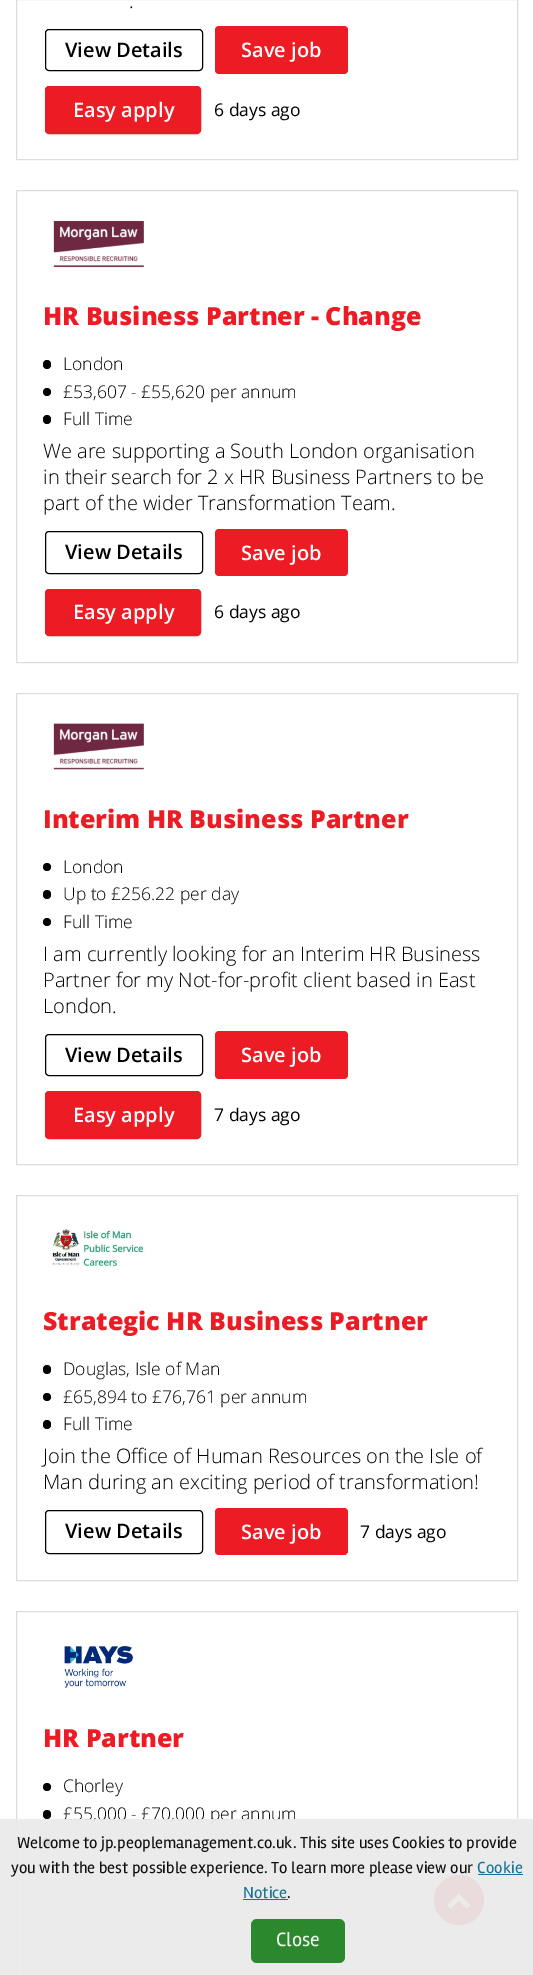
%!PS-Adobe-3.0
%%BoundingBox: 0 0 533 1975
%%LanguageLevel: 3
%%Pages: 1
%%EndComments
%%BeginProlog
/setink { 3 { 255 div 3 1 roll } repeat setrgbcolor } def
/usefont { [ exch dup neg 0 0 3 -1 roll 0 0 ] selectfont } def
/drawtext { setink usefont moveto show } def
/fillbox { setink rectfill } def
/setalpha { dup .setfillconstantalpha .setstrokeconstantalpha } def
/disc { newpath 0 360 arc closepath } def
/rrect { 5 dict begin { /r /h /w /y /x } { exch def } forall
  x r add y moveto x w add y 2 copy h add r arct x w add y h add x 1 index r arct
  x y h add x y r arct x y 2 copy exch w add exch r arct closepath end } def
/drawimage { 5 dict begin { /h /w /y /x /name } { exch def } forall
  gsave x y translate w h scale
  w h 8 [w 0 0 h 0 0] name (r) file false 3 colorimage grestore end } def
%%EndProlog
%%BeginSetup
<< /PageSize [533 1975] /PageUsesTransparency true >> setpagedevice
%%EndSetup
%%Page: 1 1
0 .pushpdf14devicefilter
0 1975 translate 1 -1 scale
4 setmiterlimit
0 0 533 1975 255 255 255 fillbox
221 221 221 setink
16.5 -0.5 501 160 rectstroke
(.) 129 8 /OpenSans-Light 20 0 0 0 drawtext
45.5 29.5 157 41 3.5 rrect stroke
(View Details) 65 57 /OpenSans-SemiBold 20 0 0 0 drawtext
237 28 36 setink
215 26 133 48 4 rrect fill
(Save job) 241 57 /OpenSans-SemiBold 20 255 255 255 drawtext
237 28 36 setink
45.5 86.5 155 47 3.5 rrect gsave fill grestore
stroke
(Easy apply) 73 117 /OpenSans-SemiBold 20 255 255 255 drawtext
(6 days ago) 214 116 /OpenSans-Regular 17.5 0 0 0 drawtext
221 221 221 setink
16.5 190.5 501 472 rectstroke
(assets/img1.rgb) 53 220 91 48 drawimage
(HR Business Partner - Change) 43 325 /OpenSans-ExtraBold 25 237 28 36 drawtext
0 0 0 setink
43 360 8 9 4 rrect fill
(London) 63 370 /OpenSans-Light 17.5 0 0 0 drawtext
47 392 4 disc fill
(£53,607 - £55,620 per annum) 63 398 /OpenSans-Light 17.5 0 0 0 drawtext
43 415 8 9 4 rrect fill
(Full Time) 63 425 /OpenSans-Light 17.5 0 0 0 drawtext
(We are supporting a South London organisation) 43 458 /OpenSans-Light 20 0 0 0 drawtext
(in their search for 2 x HR Business Partners to be) 43 484 /OpenSans-Light 20 0 0 0 drawtext
(part of the wider Transformation Team.) 43 510 /OpenSans-Light 20 0 0 0 drawtext
45.5 531.5 157 42 3.5 rrect stroke
(View Details) 65 559 /OpenSans-SemiBold 20 0 0 0 drawtext
237 28 36 setink
215 529 133 47 4 rrect fill
(Save job) 241 560 /OpenSans-SemiBold 20 255 255 255 drawtext
237 28 36 setink
45.5 589.5 155 46 3.5 rrect gsave fill grestore
stroke
(Easy apply) 73 619 /OpenSans-SemiBold 20 255 255 255 drawtext
(6 days ago) 214 618 /OpenSans-Regular 17.5 0 0 0 drawtext
221 221 221 setink
16.5 693.5 501 471 rectstroke
(assets/img2.rgb) 53 723 91 47 drawimage
(Interim HR Business Partner) 43 828 /OpenSans-ExtraBold 25 237 28 36 drawtext
0 0 0 setink
47 867 4 disc fill
(London) 63 873 /OpenSans-Light 17.5 0 0 0 drawtext
43 890 8 9 4 rrect fill
(Up to £256.22 per day) 63 900 /OpenSans-Light 17.5 0 0 0 drawtext
47 922 4 disc fill
(Full Time) 63 928 /OpenSans-Light 17.5 0 0 0 drawtext
(I am currently looking for an Interim HR Business) 43 961 /OpenSans-Light 20 0 0 0 drawtext
(Partner for my Not-for-profit client based in East) 43 987 /OpenSans-Light 20 0 0 0 drawtext
(London.) 43 1013 /OpenSans-Light 20 0 0 0 drawtext
45.5 1034.5 157 41 3.5 rrect stroke
(View Details) 65 1062 /OpenSans-SemiBold 20 0 0 0 drawtext
237 28 36 setink
215 1031 133 48 4 rrect fill
(Save job) 241 1062 /OpenSans-SemiBold 20 255 255 255 drawtext
237 28 36 setink
45.5 1091.5 155 47 3.5 rrect gsave fill grestore
stroke
(Easy apply) 73 1122 /OpenSans-SemiBold 20 255 255 255 drawtext
(7 days ago) 214 1121 /OpenSans-Regular 17.5 0 0 0 drawtext
221 221 221 setink
16.5 1195.5 501 385 rectstroke
(assets/img3.rgb) 51 1229 96 40 drawimage
(Strategic HR Business Partner) 43 1330 /OpenSans-ExtraBold 25 237 28 36 drawtext
0 0 0 setink
43 1365 8 9 4 rrect fill
(Douglas, Isle of Man) 63 1375 /OpenSans-Light 17.5 0 0 0 drawtext
47 1397 4 disc fill
(£65,894 to £76,761 per annum) 63 1403 /OpenSans-Light 17.5 0 0 0 drawtext
43 1420 8 9 4 rrect fill
(Full Time) 63 1430 /OpenSans-Light 17.5 0 0 0 drawtext
(Join the Office of Human Resources on the Isle of) 43 1463 /OpenSans-Light 20 0 0 0 drawtext
(Man during an exciting period of transformation!) 43 1489 /OpenSans-Light 20 0 0 0 drawtext
45.5 1510.5 157 43 3.5 rrect stroke
(View Details) 65 1538 /OpenSans-SemiBold 20 0 0 0 drawtext
237 28 36 setink
215 1508 133 47 4 rrect fill
(Save job) 241 1539 /OpenSans-SemiBold 20 255 255 255 drawtext
(7 days ago) 360 1538 /OpenSans-Regular 17.5 0 0 0 drawtext
221 221 221 setink
16.5 1611.5 501 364 rectstroke
(assets/img4.rgb) 64 1645 70 43 drawimage
(HR Partner) 43 1747 /OpenSans-ExtraBold 25 237 28 36 drawtext
0 0 0 setink
47 1787 4 disc fill
(Chorley) 63 1792 /OpenSans-Light 17.5 0 0 0 drawtext
43 1810 8 9 4 rrect fill
(£55,000 - £70,000 per annum) 63 1820 /OpenSans-Light 17.5 0 0 0 drawtext
47 1842 4 disc fill
237 28 36 setink
459 1900 25 disc fill
(assets/img5.rgb) 447 1894 23 15 drawimage
0.93 setalpha
0 1819 533 156 234 234 234 fillbox
1 setalpha
(Welcome to jp.peoplemanagement.co.uk. This site uses Cookies to provide) 17 1848 /Rambla-Regular 16.6 16 16 16 drawtext
(you with the best possible experience. To learn more please view our) 11 1873 /Rambla-Regular 16.6 16 16 16 drawtext
(Cookie) 477 1873 /Rambla-Regular 16.6 22 115 153 drawtext
478 1874 45 1 22 115 153 fillbox
(Notice) 243 1898 /Rambla-Regular 16.6 22 115 153 drawtext
0.93 setalpha
243 1899 45 1 6 106 147 fillbox
1 setalpha
(.) 287 1898 /Rambla-Regular 16.6 16 16 16 drawtext
0.93 setalpha
30 129 30 setink
251 1919 94 44 6 rrect fill
1 setalpha
(Close) 276 1946 /Rambla-Regular 20 240 247 240 drawtext
.poppdf14devicefilter showpage
%%EOF
